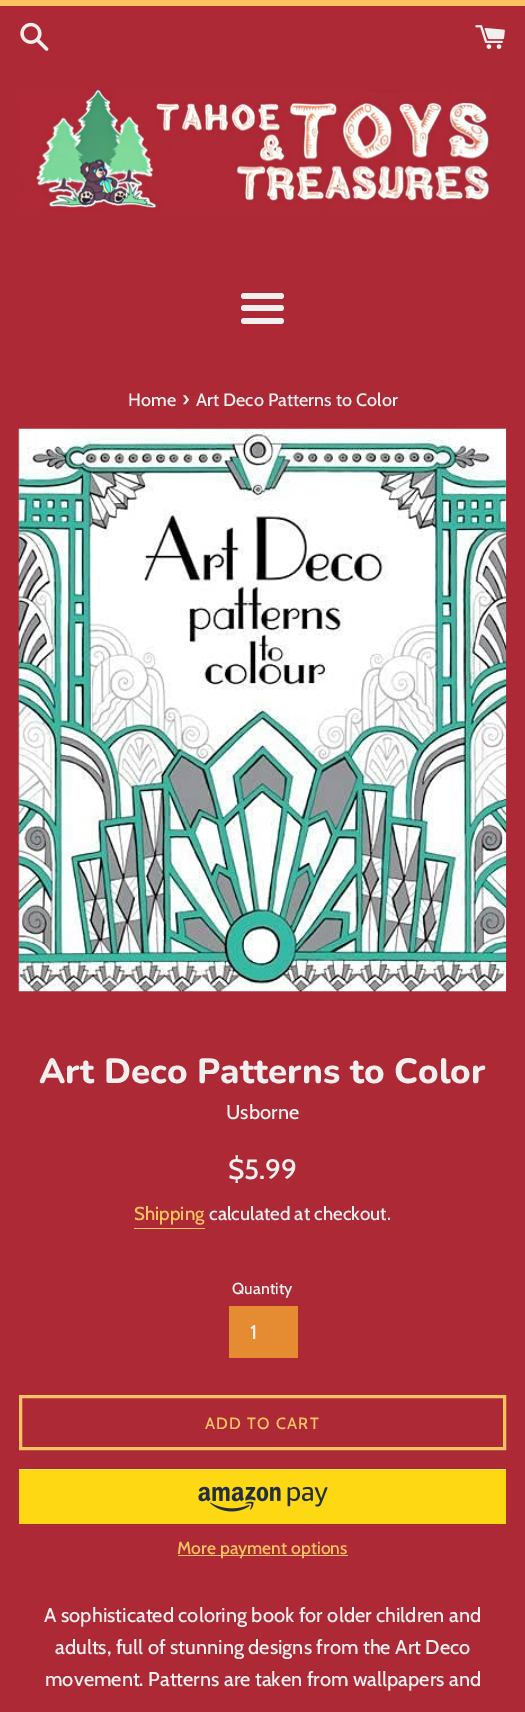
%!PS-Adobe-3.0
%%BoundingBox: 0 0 525 1712
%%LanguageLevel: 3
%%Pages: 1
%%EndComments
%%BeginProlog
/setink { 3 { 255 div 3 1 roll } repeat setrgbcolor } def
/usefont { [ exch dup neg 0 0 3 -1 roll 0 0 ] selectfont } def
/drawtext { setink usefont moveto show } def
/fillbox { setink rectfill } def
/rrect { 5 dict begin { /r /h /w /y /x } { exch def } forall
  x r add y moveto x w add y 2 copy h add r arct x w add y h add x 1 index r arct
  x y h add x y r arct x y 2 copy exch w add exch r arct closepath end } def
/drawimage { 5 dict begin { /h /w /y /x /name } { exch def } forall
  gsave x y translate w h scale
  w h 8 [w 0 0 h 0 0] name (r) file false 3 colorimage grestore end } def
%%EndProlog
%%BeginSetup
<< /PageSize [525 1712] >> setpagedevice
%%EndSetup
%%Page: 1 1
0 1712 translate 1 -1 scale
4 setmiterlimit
0 0 525 1712 174 41 54 fillbox
0 0 525 6 253 195 99 fillbox
(assets/img1.rgb) 20 22 29 29 drawimage
(assets/img2.rgb) 475 25 30 24 drawimage
(assets/img3.rgb) 19 90 473 120 drawimage
243 239 238 setink
241 293 43 6 3 rrect fill
241 305 43 6 3 rrect fill
241 318 43 6 3 rrect fill
(Home) 128 406 /Cabin-Medium 18 243 239 238 drawtext
(›) 182 406 /Cabin-Medium 22 243 239 238 drawtext
(Art Deco Patterns to Color) 196 406 /Cabin-Medium 18 243 239 238 drawtext
(assets/img4.rgb) 18 428 489 564 drawimage
(Art Deco Patterns to Color) 39 1083 /Nunito-ExtraBold 35 243 239 238 drawtext
(Usborne) 226 1119 /Cabin-Medium 20 243 239 238 drawtext
($5.99) 228 1179 /Cabin-Medium 28 243 239 238 drawtext
(Shipping) 134 1220 /Cabin-Medium 18.75 253 195 99 drawtext
134 1228 71 1 253 195 99 fillbox
(calculated at checkout.) 209 1220 /Cabin-Medium 18.75 243 239 238 drawtext
(Quantity) 232 1294 /Cabin-Medium 16 243 239 238 drawtext
229 1306 69 52 229 140 50 fillbox
(1) 250 1339 /Cabin-Medium 20 243 239 238 drawtext
253 195 99 setink
3 setlinewidth
20.5 1396.5 484 52 rectstroke
/Cabin-Medium 16.25 usefont
205 1429 moveto 1.25 0 (ADD TO CART) ashow
19 1470 487 54 255 216 20 fillbox
19 1469 487 1 255 232 114 fillbox
(assets/img5.rgb) 198 1486 130 26 drawimage
178 1555 170 1 253 195 99 fillbox
(More payment options) 177 1554 /Cabin-Medium 17.5 253 195 99 drawtext
(A sophisticated coloring book for older children and) 44 1622 /Cabin-Medium 20 243 239 238 drawtext
(adults, full of stunning designs from the Art Deco) 55 1654 /Cabin-Medium 20 243 239 238 drawtext
(movement. Patterns are taken from wallpapers and) 45 1686 /Cabin-Medium 20 243 239 238 drawtext
showpage
%%EOF
